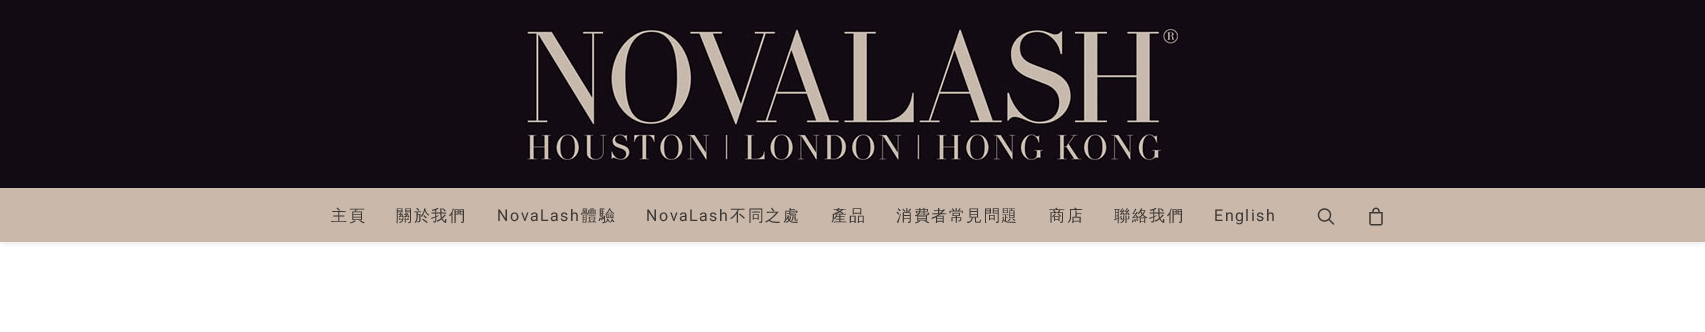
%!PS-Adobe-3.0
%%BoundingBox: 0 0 1705 332
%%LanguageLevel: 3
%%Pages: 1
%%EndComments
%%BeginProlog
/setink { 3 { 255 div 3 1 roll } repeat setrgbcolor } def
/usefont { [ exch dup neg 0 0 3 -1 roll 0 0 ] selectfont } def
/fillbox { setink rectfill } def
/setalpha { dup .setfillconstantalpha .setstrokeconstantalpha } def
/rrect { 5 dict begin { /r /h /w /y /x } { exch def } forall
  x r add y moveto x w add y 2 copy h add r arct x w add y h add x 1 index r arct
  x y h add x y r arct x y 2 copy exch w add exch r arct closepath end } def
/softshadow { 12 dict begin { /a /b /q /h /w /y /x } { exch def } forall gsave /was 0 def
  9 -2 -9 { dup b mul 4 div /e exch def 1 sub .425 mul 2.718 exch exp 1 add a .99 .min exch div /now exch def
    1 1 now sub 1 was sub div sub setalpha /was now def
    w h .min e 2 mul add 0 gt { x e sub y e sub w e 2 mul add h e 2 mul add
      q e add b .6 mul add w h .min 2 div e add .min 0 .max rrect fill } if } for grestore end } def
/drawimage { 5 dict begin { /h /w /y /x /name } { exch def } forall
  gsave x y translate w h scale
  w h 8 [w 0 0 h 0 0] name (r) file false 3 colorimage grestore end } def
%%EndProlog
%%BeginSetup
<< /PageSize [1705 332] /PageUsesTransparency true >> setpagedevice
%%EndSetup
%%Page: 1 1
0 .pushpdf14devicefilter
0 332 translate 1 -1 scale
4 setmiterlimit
0 0 1705 332 18 11 19 fillbox
(assets/img1.rgb) 526 27 653 134 drawimage
0 242 1705 90 255 255 255 fillbox
0 0 0 setink
5 202 1696 34 0 5 0.6 softshadow
0 188 1705 54 202 184 170 fillbox
/WenQuanYiZenHei-Medium 16 usefont
62 57 53 setink
331 221 moveto 1.5 0 (主頁) ashow
396 221 moveto 1.5 0 (關於我們) ashow
/Roboto-Regular 16 usefont
497 221 moveto 1.5 0 (NovaLash) ashow
/WenQuanYiZenHei-Medium 16 usefont
581 221 moveto 1.5 0 (體驗) ashow
/Roboto-Regular 16 usefont
646 221 moveto 1.5 0 (NovaLash) ashow
/WenQuanYiZenHei-Medium 16 usefont
730 221 moveto 1.5 0 (不同之處) ashow
831 221 moveto 1.5 0 (產品) ashow
896 221 moveto 1.5 0 (消費者常見問題) ashow
1049 221 moveto 1.5 0 (商店) ashow
1114 221 moveto 1.5 0 (聯絡我們) ashow
/Roboto-Regular 16 usefont
1214 221 moveto 1.5 0 (English) ashow
(assets/img2.rgb) 1317 208 18 17 drawimage
(assets/img3.rgb) 1369 207 14 19 drawimage
.poppdf14devicefilter showpage
%%EOF
